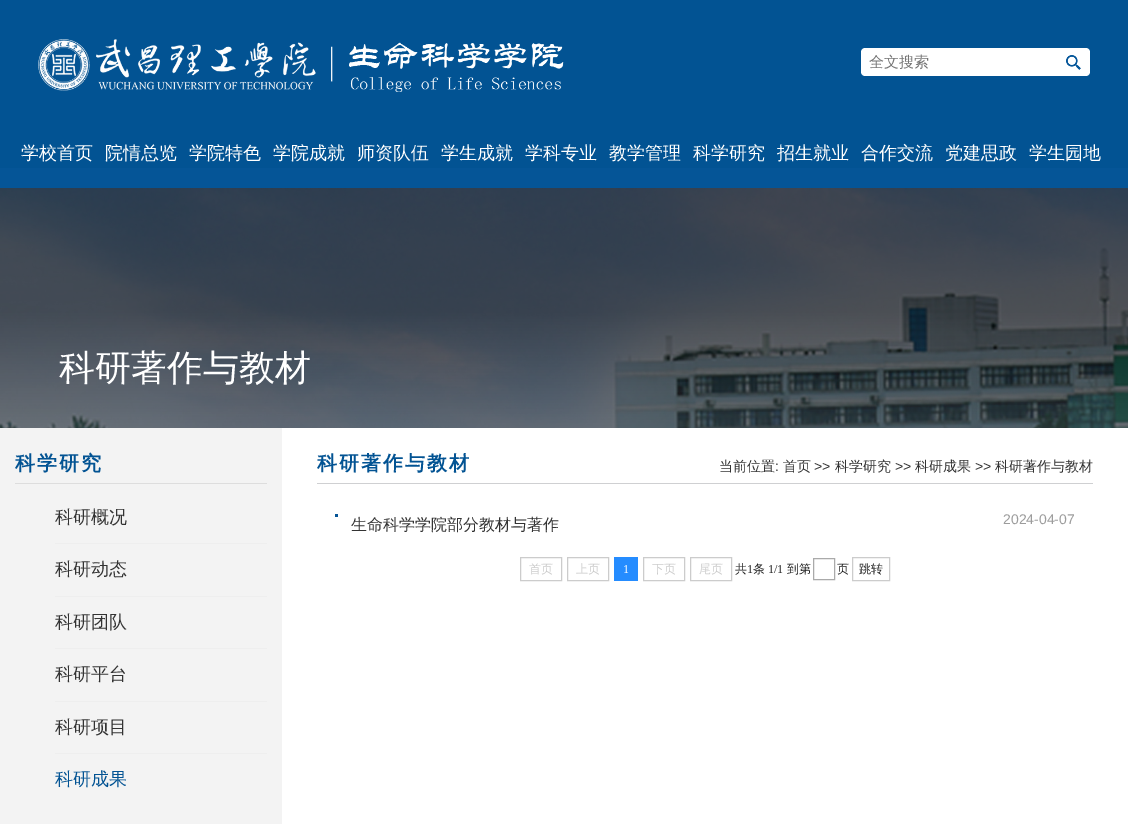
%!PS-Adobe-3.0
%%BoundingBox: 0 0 1128 824
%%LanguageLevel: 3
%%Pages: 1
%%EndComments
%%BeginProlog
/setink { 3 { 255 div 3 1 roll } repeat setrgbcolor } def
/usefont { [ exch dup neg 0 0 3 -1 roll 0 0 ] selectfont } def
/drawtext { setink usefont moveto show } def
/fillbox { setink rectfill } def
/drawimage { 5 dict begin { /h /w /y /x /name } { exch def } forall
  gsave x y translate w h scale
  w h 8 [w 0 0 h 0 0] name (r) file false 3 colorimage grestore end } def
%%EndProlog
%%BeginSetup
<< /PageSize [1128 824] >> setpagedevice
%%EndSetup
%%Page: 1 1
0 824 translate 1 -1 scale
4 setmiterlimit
0 0 1128 824 5 85 151 fillbox
0 0 1128 168 2 83 147 fillbox
(assets/img1.rgb) 38 39 526 53 drawimage
255 255 255 setink
865 48 moveto 1063 48 lineto 1063 76 lineto 865 76 lineto 863 76 861 74 861 72 curveto 861 52 lineto 861 50 863 48 865 48 curveto closepath fill
(全文搜索) 869 67 /WenQuanYiZenHei-Medium 15 117 117 117 drawtext
255 255 255 setink
1058 48 moveto 1086 48 lineto 1088 48 1090 50 1090 52 curveto 1090 72 lineto 1090 74 1088 76 1086 76 curveto 1058 76 lineto closepath fill
(assets/img2.rgb) 1066 55 15 15 drawimage
(学校首页) 21 159 /WenQuanYiZenHei-Medium 18 255 255 255 drawtext
(院情总览) 105 159 /WenQuanYiZenHei-Medium 18 255 255 255 drawtext
(学院特色) 189 159 /WenQuanYiZenHei-Medium 18 255 255 255 drawtext
(学院成就) 273 159 /WenQuanYiZenHei-Medium 18 255 255 255 drawtext
(师资队伍) 357 159 /WenQuanYiZenHei-Medium 18 255 255 255 drawtext
(学生成就) 441 159 /WenQuanYiZenHei-Medium 18 255 255 255 drawtext
(学科专业) 525 159 /WenQuanYiZenHei-Medium 18 255 255 255 drawtext
(教学管理) 609 159 /WenQuanYiZenHei-Medium 18 255 255 255 drawtext
(科学研究) 693 159 /WenQuanYiZenHei-Medium 18 255 255 255 drawtext
(招生就业) 777 159 /WenQuanYiZenHei-Medium 18 255 255 255 drawtext
(合作交流) 861 159 /WenQuanYiZenHei-Medium 18 255 255 255 drawtext
(党建思政) 945 159 /WenQuanYiZenHei-Medium 18 255 255 255 drawtext
(学生园地) 1029 159 /WenQuanYiZenHei-Medium 18 255 255 255 drawtext
(assets/img3.rgb) 0 188 1128 240 drawimage
(科研著作与教材) 59 380 /WenQuanYiZenHei-Medium 36 255 255 255 drawtext
0 428 282 396 243 243 243 fillbox
15 483 252 1 221 221 221 fillbox
/WenQuanYiZenHei-Bold 20 usefont
2 83 147 setink
15 470 moveto 2 0 (科学研究) ashow
55 543 212 1 238 238 238 fillbox
(科研概况) 55 523 /WenQuanYiZenHei-Medium 18 51 51 51 drawtext
55 596 212 1 238 238 238 fillbox
(科研动态) 55 575 /WenQuanYiZenHei-Medium 18 51 51 51 drawtext
55 648 212 1 238 238 238 fillbox
(科研团队) 55 628 /WenQuanYiZenHei-Medium 18 51 51 51 drawtext
55 701 212 1 238 238 238 fillbox
(科研平台) 55 680 /WenQuanYiZenHei-Medium 18 51 51 51 drawtext
55 753 212 1 238 238 238 fillbox
(科研项目) 55 733 /WenQuanYiZenHei-Medium 18 51 51 51 drawtext
(科研成果) 55 785 /WenQuanYiZenHei-Medium 18 2 83 147 drawtext
282 428 846 396 255 255 255 fillbox
317 483 776 1 207 208 210 fillbox
/WenQuanYiZenHei-Bold 20 usefont
2 83 147 setink
317 470 moveto 2 0 (科研著作与教材) ashow
(当前位置) 719 471 /WenQuanYiZenHei-Medium 14 51 51 51 drawtext
(:) 775 471 /LiberationSans-Regular 14 51 51 51 drawtext
(首页) 783 471 /WenQuanYiZenHei-Medium 14 51 51 51 drawtext
(>>) 814 471 /LiberationSans-Regular 14 51 51 51 drawtext
(科学研究) 835 471 /WenQuanYiZenHei-Medium 14 51 51 51 drawtext
(>>) 895 471 /LiberationSans-Regular 14 51 51 51 drawtext
(科研成果) 915 471 /WenQuanYiZenHei-Medium 14 51 51 51 drawtext
(>>) 975 471 /LiberationSans-Regular 14 51 51 51 drawtext
(科研著作与教材) 995 471 /WenQuanYiZenHei-Medium 14 51 51 51 drawtext
335 514 3 3 5 84 150 fillbox
(生命科学学院部分教材与著作) 351 530 /WenQuanYiZenHei-Medium 16 51 51 51 drawtext
(2024-04-07) 1003 524 /LiberationSans-Regular 14 156 156 156 drawtext
204 204 204 setink
520.5 557.5 41 23 rectstroke
(首页) 529 573 /WenQuanYiZenHei-Medium 12 204 204 204 drawtext
567.5 557.5 41 23 rectstroke
(上页) 576 573 /WenQuanYiZenHei-Medium 12 204 204 204 drawtext
614 557 24 24 37 140 255 fillbox
(1) 623 573 /LiberationSerif-Regular 12 255 255 255 drawtext
204 204 204 setink
643.5 557.5 41 23 rectstroke
(下页) 652 573 /WenQuanYiZenHei-Medium 12 204 204 204 drawtext
690.5 557.5 41 23 rectstroke
(尾页) 699 573 /WenQuanYiZenHei-Medium 12 204 204 204 drawtext
(共) 735 573 /WenQuanYiZenHei-Medium 12 34 34 34 drawtext
(1) 747 573 /LiberationSerif-Regular 12 34 34 34 drawtext
(条) 753 573 /WenQuanYiZenHei-Medium 12 34 34 34 drawtext
(1/1) 768 573 /LiberationSerif-Regular 12 34 34 34 drawtext
(到第) 787 573 /WenQuanYiZenHei-Medium 12 34 34 34 drawtext
170 170 170 setink
813.5 558.5 21 21 rectstroke
(页) 837 573 /WenQuanYiZenHei-Medium 12 34 34 34 drawtext
204 204 204 setink
852.5 557.5 37 23 rectstroke
(跳转) 859 573 /WenQuanYiZenHei-Medium 12 34 34 34 drawtext
showpage
%%EOF
